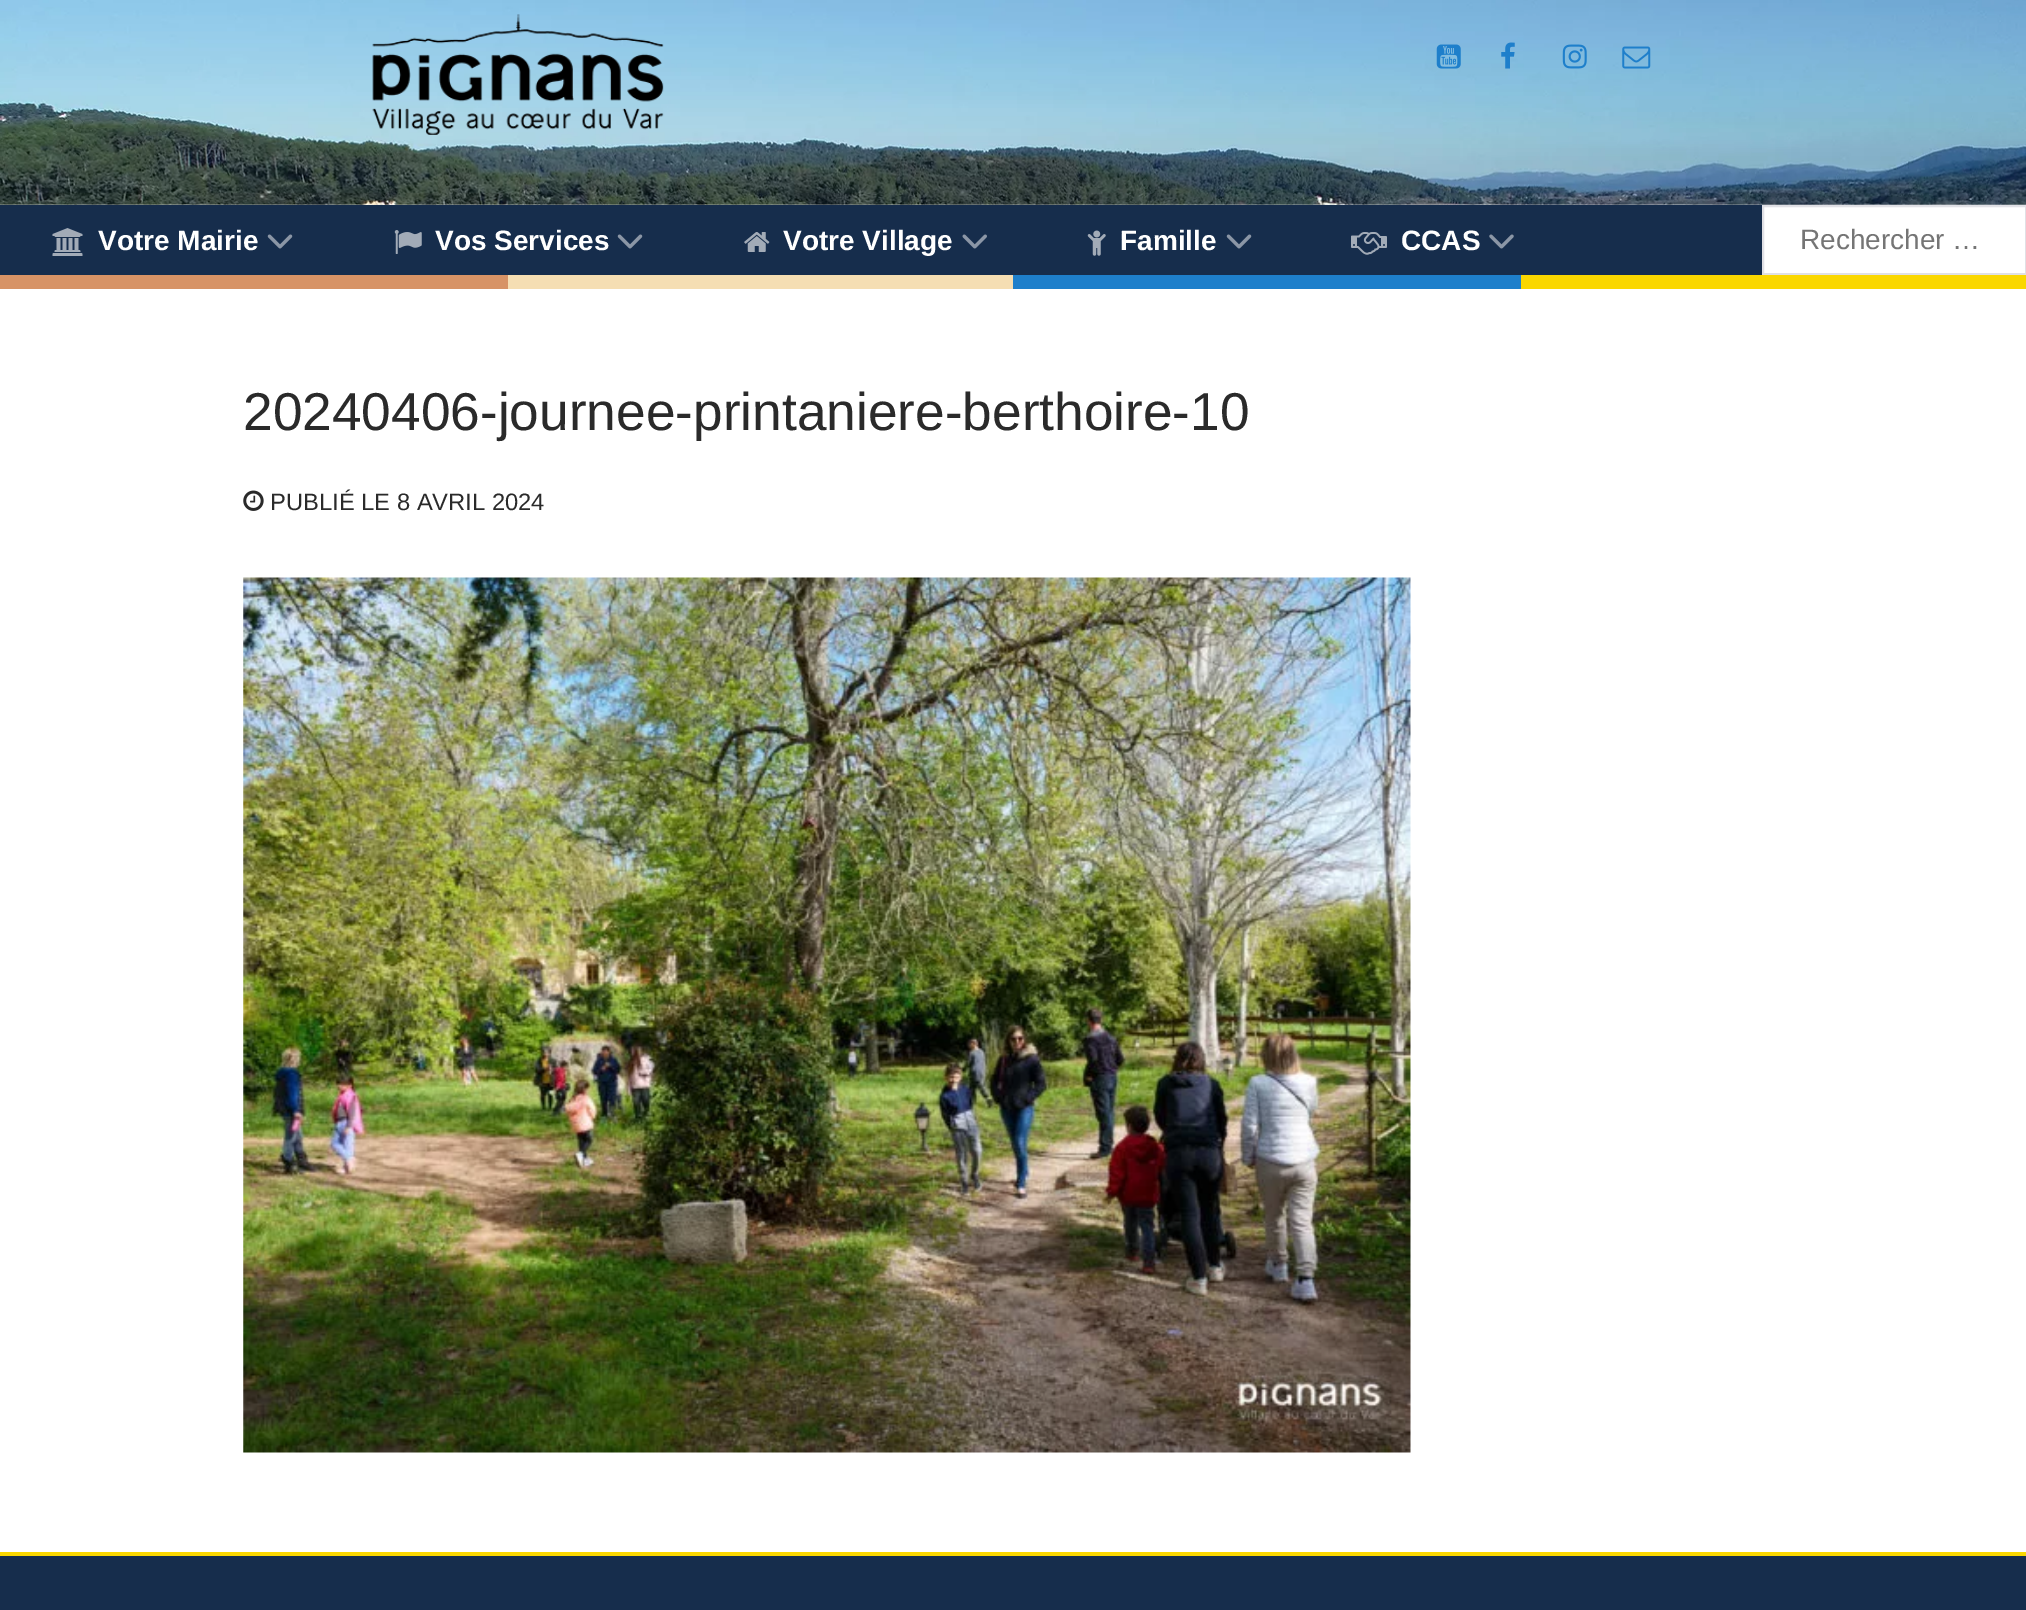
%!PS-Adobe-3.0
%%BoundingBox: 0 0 2026 1610
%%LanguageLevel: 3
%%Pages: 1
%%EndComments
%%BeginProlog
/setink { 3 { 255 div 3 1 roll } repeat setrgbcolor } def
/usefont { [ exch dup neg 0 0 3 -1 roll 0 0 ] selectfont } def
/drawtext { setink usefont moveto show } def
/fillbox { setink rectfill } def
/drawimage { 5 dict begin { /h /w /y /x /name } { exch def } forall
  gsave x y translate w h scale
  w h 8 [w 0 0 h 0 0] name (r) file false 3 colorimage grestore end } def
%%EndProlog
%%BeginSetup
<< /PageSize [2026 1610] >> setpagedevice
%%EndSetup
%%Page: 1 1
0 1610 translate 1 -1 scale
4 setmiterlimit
0 0 2026 1610 255 255 255 fillbox
(assets/img1.rgb) 0 0 2026 205 drawimage
(assets/img2.rgb) 372 14 292 121 drawimage
(assets/img3.rgb) 1436 44 25 25 drawimage
(assets/img4.rgb) 1501 42 14 27 drawimage
(assets/img5.rgb) 1562 44 25 25 drawimage
(assets/img6.rgb) 1622 46 29 23 drawimage
0 205 1762 70 22 45 76 fillbox
(assets/img7.rgb) 52 228 31 28 drawimage
(Votre Mairie) 98 250 /LiberationSans-Bold 28 255 255 255 drawtext
(assets/img8.rgb) 267 234 26 15 drawimage
(assets/img9.rgb) 394 230 28 24 drawimage
(Vos Services) 435 250 /LiberationSans-Bold 28 255 255 255 drawtext
(assets/img8.rgb) 617 234 26 15 drawimage
(assets/img10.rgb) 744 232 26 20 drawimage
(Votre Village) 783 250 /LiberationSans-Bold 28 255 255 255 drawtext
(assets/img11.rgb) 962 234 25 15 drawimage
(assets/img12.rgb) 1087 230 19 26 drawimage
(Famille) 1120 250 /LiberationSans-Bold 28 255 255 255 drawtext
(assets/img8.rgb) 1226 234 26 15 drawimage
(assets/img13.rgb) 1351 232 36 23 drawimage
(CCAS) 1401 250 /LiberationSans-Bold 28 255 255 255 drawtext
(assets/img14.rgb) 1489 234 25 15 drawimage
224 224 229 setink
2 setlinewidth
1763 206 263 68 rectstroke
(Rechercher …) 1800 249 /LiberationSans-Regular 28 117 117 117 drawtext
0 275 508 14 215 147 102 fillbox
508 275 505 14 245 222 179 fillbox
1013 275 508 14 30 127 203 fillbox
1521 275 505 14 250 215 0 fillbox
(20240406-journee-printaniere-berthoire-10) 243 430 /LiberationSans-Regular 53.25 42 42 42 drawtext
(assets/img15.rgb) 243 490 21 21 drawimage
(PUBLIÉ LE 8 AVRIL 2024) 270 510 /LiberationSans-Regular 23.75 42 42 42 drawtext
(assets/img16.rgb) 243 577 1168 876 drawimage
0 1556 2026 54 22 45 76 fillbox
0 1552 2026 4 250 215 0 fillbox
showpage
%%EOF
